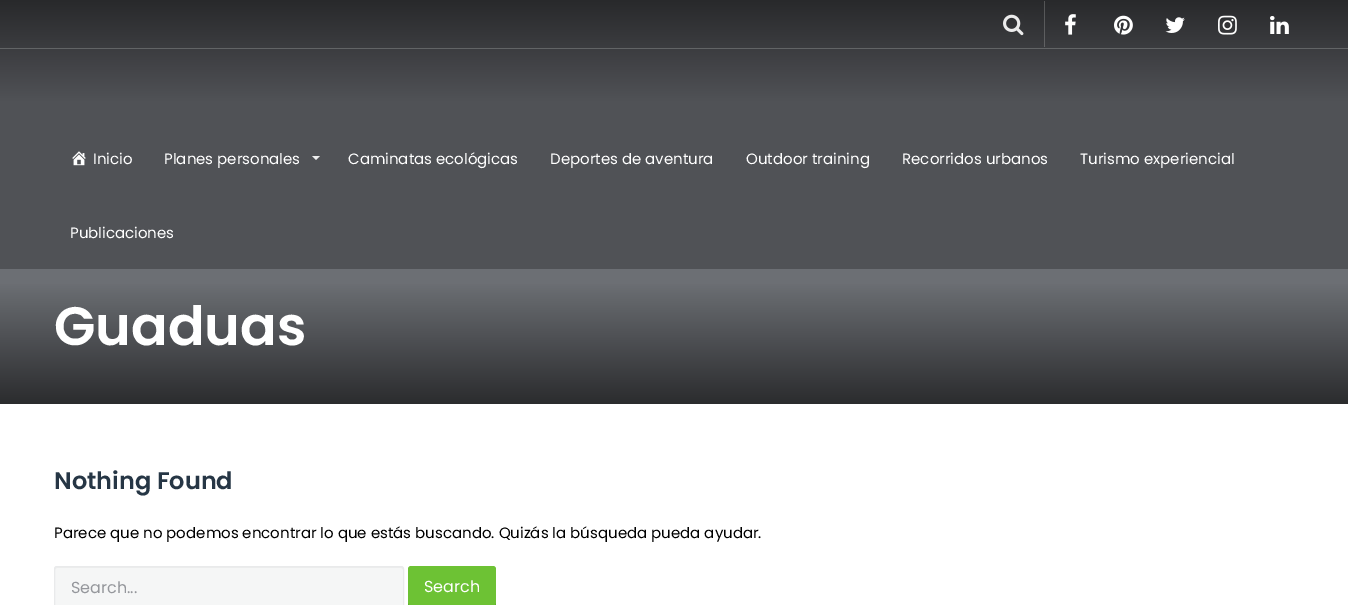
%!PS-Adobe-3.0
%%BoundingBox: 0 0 1348 605
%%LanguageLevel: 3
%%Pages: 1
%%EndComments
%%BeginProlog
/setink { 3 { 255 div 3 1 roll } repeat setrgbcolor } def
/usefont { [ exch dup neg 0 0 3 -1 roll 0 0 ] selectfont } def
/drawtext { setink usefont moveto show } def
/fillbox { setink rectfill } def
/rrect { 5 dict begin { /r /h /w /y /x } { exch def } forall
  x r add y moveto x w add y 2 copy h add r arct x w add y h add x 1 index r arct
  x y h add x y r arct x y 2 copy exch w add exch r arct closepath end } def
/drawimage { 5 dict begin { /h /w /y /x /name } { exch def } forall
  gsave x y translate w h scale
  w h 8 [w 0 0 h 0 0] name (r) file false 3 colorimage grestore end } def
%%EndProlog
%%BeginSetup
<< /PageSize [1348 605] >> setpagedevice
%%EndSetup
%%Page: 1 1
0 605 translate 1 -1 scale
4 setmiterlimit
0 0 1348 605 255 255 255 fillbox
gsave 0 0 moveto 1348 0 lineto 1348 269 lineto 0 269 lineto closepath clip newpath
<< /ShadingType 2 /ColorSpace /DeviceRGB /Coords [674 0 674 404] /Extend [true true] /Function << /FunctionType 3 /Domain [0 1] /Functions [<< /FunctionType 2 /Domain [0 1] /C0 [0.157 0.161 0.169] /C1 [0.314 0.322 0.337] /N 1 >> << /FunctionType 2 /Domain [0 1] /C0 [0.314 0.322 0.337] /C1 [0.314 0.322 0.337] /N 1 >> << /FunctionType 2 /Domain [0 1] /C0 [0.314 0.322 0.337] /C1 [0.125 0.129 0.133] /N 1 >>] /Bounds [0.25 0.7] /Encode [0 1 0 1 0 1] >> >> shfill grestore
0 48 1348 1 98 100 102 fillbox
(assets/img1.rgb) 1003 14 21 22 drawimage
(assets/img2.rgb) 1065 14 11 21 drawimage
(assets/img3.rgb) 1114 15 19 20 drawimage
(assets/img4.rgb) 1165 17 20 16 drawimage
(assets/img5.rgb) 1218 15 19 20 drawimage
(assets/img6.rgb) 1270 16 19 18 drawimage
(assets/img7.rgb) 72 151 14 15 drawimage
(Inicio) 93 164 /Poppins-Regular 15 255 255 255 drawtext
(Planes personales) 164 164 /Poppins-Regular 15 255 255 255 drawtext
237 238 238 setink
312 156 moveto 320 156 lineto 316 160 lineto closepath fill
(Caminatas ecológicas) 348 164 /Poppins-Regular 15 255 255 255 drawtext
(Deportes de aventura) 550 164 /Poppins-Regular 15 255 255 255 drawtext
(Outdoor training) 746 164 /Poppins-Regular 15 255 255 255 drawtext
(Recorridos urbanos) 902 164 /Poppins-Regular 15 255 255 255 drawtext
(Turismo experiencial) 1080 164 /Poppins-Regular 15 255 255 255 drawtext
(Publicaciones) 70 238 /Poppins-Regular 15 255 255 255 drawtext
gsave 0 269 moveto 1348 269 lineto 1348 404 lineto 0 404 lineto closepath clip newpath
<< /ShadingType 2 /ColorSpace /DeviceRGB /Coords [674 0 674 404] /Extend [true true] /Function << /FunctionType 3 /Domain [0 1] /Functions [<< /FunctionType 2 /Domain [0 1] /C0 [0.212 0.216 0.227] /C1 [0.424 0.435 0.455] /N 1 >> << /FunctionType 2 /Domain [0 1] /C0 [0.424 0.435 0.455] /C1 [0.424 0.435 0.455] /N 1 >> << /FunctionType 2 /Domain [0 1] /C0 [0.424 0.435 0.455] /C1 [0.169 0.173 0.18] /N 1 >>] /Bounds [0.25 0.7] /Encode [0 1 0 1 0 1] >> >> shfill grestore
gsave 1044 1 moveto 1045 1 lineto 1045 47 lineto 1044 47 lineto closepath clip newpath
<< /ShadingType 2 /ColorSpace /DeviceRGB /Coords [674 0 674 404] /Extend [true true] /Function << /FunctionType 3 /Domain [0 1] /Functions [<< /FunctionType 2 /Domain [0 1] /C0 [0.325 0.329 0.333] /C1 [0.451 0.459 0.471] /N 1 >> << /FunctionType 2 /Domain [0 1] /C0 [0.451 0.459 0.471] /C1 [0.451 0.459 0.471] /N 1 >> << /FunctionType 2 /Domain [0 1] /C0 [0.451 0.459 0.471] /C1 [0.302 0.302 0.306] /N 1 >>] /Bounds [0.25 0.7] /Encode [0 1 0 1 0 1] >> >> shfill grestore
(Guaduas) 54 345 /Poppins-SemiBold 54 255 255 255 drawtext
(Nothing Found) 54 489 /Poppins-SemiBold 24 38 54 69 drawtext
(Parece que no podemos encontrar lo que estás buscando. Quizás la búsqueda pueda ayudar.) 54 538 /Poppins-Regular 15 0 0 0 drawtext
245 246 246 setink
54 566 350 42 3 rrect fill
236 237 237 setink
57 568 moveto 401 568 lineto 402 568 403 569 403 570 curveto 403 569 403 567 401 567 curveto 57 567 lineto 55 568 lineto 55 570 lineto 55 569 56 568 57 568 curveto closepath fill
233 234 235 setink
54.5 566.5 349 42 2.5 rrect stroke
(Search...) 71 593 /Poppins-Regular 16 149 151 156 drawtext
109 194 52 setink
408 566 88 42 3 rrect fill
87 155 42 setink
408 603 moveto 408 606 lineto 408 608 409 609 411 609 curveto 493 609 lineto 495 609 496 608 496 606 curveto 496 603 lineto 496 605 495 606 493 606 curveto 411 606 lineto 409 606 408 605 408 603 curveto closepath fill
(Search) 424 592 /Poppins-Regular 16 255 255 255 drawtext
showpage
%%EOF
